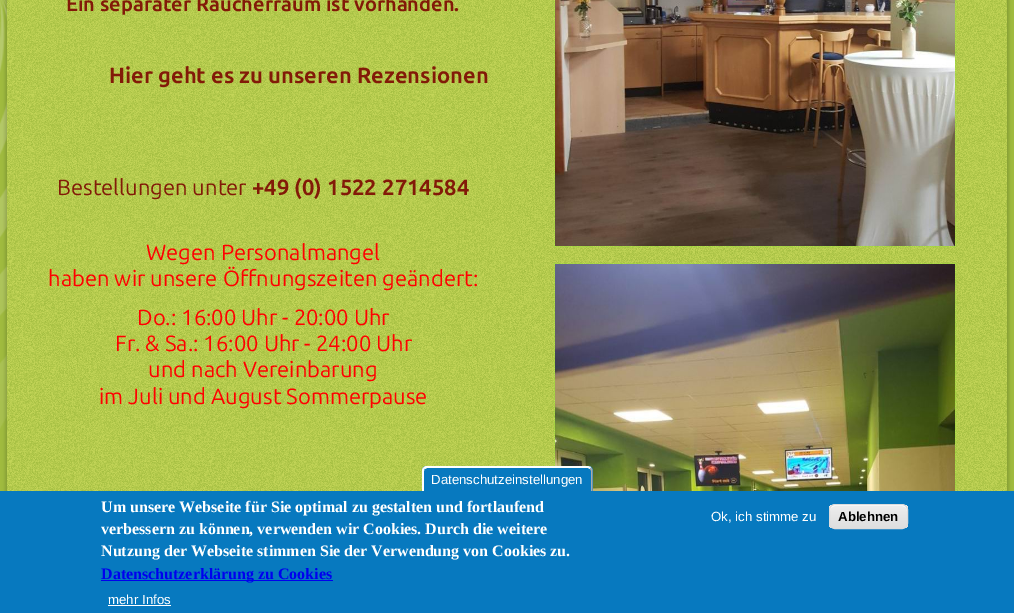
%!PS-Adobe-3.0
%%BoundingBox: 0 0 1014 613
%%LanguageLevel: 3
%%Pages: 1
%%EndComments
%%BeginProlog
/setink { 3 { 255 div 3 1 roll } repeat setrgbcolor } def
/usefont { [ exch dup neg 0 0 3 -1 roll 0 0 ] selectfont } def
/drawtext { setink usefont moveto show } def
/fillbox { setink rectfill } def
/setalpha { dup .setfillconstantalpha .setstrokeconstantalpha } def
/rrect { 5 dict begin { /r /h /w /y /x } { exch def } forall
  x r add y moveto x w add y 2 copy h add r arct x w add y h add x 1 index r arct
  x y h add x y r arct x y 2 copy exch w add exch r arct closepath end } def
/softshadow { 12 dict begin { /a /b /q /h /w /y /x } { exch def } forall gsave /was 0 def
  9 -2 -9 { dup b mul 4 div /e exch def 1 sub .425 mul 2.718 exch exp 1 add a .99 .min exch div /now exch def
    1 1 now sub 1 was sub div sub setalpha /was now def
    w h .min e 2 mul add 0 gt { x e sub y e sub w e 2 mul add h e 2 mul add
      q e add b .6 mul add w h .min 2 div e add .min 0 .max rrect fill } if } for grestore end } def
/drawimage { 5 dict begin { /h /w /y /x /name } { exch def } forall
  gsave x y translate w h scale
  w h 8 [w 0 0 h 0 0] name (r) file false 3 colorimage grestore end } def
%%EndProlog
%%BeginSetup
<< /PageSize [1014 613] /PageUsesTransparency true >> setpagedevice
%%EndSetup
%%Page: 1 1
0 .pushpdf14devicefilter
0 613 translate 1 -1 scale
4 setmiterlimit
0 0 1014 613 255 255 255 fillbox
(assets/img1.rgb) 0 0 1014 491 drawimage
0 0 0 setink
5 -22 1004 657 17 1.5 0.15 softshadow
(assets/img2.rgb) 7 0 1000 491 drawimage
(Ein separater Raucherraum ist vorhanden.) 66 11 /Ubuntu-Bold 20 130 26 8 drawtext
(Hier geht es zu unseren Rezensionen) 109 83 /Ubuntu-Bold 22 130 26 8 drawtext
(Bestellungen unter) 57 195 /Ubuntu-Regular 22 130 26 8 drawtext
(+49 \(0\) 1522 2714584) 252 195 /Ubuntu-Bold 22 130 26 8 drawtext
(Wegen Personalmangel) 146 260 /Ubuntu-Regular 22 255 0 0 drawtext
(haben wir unsere Öffnungszeiten geändert:) 48 286 /Ubuntu-Regular 22 255 0 0 drawtext
(Do.: 16:00 Uhr - 20:00 Uhr) 137 325 /Ubuntu-Regular 22 255 0 0 drawtext
(Fr. & Sa.: 16:00 Uhr - 24:00 Uhr) 115 351 /Ubuntu-Regular 22 255 0 0 drawtext
(und nach Vereinbarung) 148 377 /Ubuntu-Regular 22 255 0 0 drawtext
(im Juli und August Sommerpause) 99 404 /Ubuntu-Regular 22 255 0 0 drawtext
158 221 64 setink
[1 1] 0 setdash
554.5 -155 moveto 554.5 247 lineto stroke
(assets/img3.rgb) 555 0 400 246 drawimage
955.5 -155 moveto 955.5 247 lineto stroke
554 246.5 moveto 956 246.5 lineto stroke
554 263.5 moveto 956 263.5 lineto stroke
554.5 263 moveto 554.5 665 lineto stroke
(assets/img4.rgb) 555 264 400 227 drawimage
955.5 263 moveto 955.5 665 lineto stroke
0 491 1014 122 7 121 191 fillbox
427 466 moveto 588 466 lineto 591 466 593 468 593 471 curveto 593 491 lineto 422 491 lineto 422 471 lineto 422 468 424 466 427 466 curveto closepath fill
255 255 255 setink
427 466 moveto 588 466 lineto 591 467 lineto 590 469 lineto 588 468 lineto 427 468 lineto 425 469 lineto 423 468 lineto 424 467 425 466 427 466 curveto closepath fill
170 170 170 setink
590 469 moveto 591.5 467.5 lineto 592.5 469.5 lineto 592.5 491 lineto 591 491 lineto 591 471 lineto 591 470 590.5 469.5 590 469 curveto closepath fill
255 255 255 setink
422 491 moveto 424 491 lineto 424 471 lineto 424 470 424 469.5 424.5 469 curveto 423 467.5 lineto 422.5 468.5 422 469.5 422 471 curveto closepath fill
(Datenschutzeinstellungen) 431 484 /LiberationSans-Regular 13.25 255 255 255 drawtext
(Um unsere Webseite für Sie optimal zu gestalten und fortlaufend) 101 512 /LiberationSerif-Bold 16 255 255 255 drawtext
(verbessern zu können, verwenden wir Cookies. Durch die weitere) 101 534 /LiberationSerif-Bold 16 255 255 255 drawtext
(Nutzung der Webseite stimmen Sie der Verwendung von Cookies zu.) 101 556 /LiberationSerif-Bold 16 255 255 255 drawtext
101 580 232 1 0 0 238 fillbox
(Datenschutzerklärung zu Cookies) 101 579 /LiberationSerif-Bold 16 0 0 238 drawtext
(mehr Infos) 108 604 /LiberationSans-Regular 13.25 255 255 255 drawtext
108 605 63 1 255 255 255 fillbox
(Ok, ich stimme zu) 711 521 /LiberationSans-Regular 13.25 255 255 255 drawtext
gsave
829 504 79 25 6 rrect clip newpath
gsave 829 505 moveto 908 505 lineto 908 528 lineto 829 528 lineto closepath clip newpath
<< /ShadingType 2 /ColorSpace /DeviceRGB /Coords [869 505 869 528] /Extend [true true] /Function << /FunctionType 3 /Domain [0 1] /Functions [<< /FunctionType 2 /Domain [0 1] /C0 [0.929 0.929 0.929] /C1 [0.929 0.929 0.929] /N 1 >> << /FunctionType 2 /Domain [0 1] /C0 [0.929 0.929 0.929] /C1 [0.875 0.875 0.875] /N 1 >>] /Bounds [0.05] /Encode [0 1 0 1] >> >> shfill grestore
grestore
835 506 moveto 902 506 lineto 905 506 907 508 907 511 curveto 907 502 897 505 891 505 curveto 846 505 lineto 840 505 830 502 830 511 curveto 830 508 832 506 835 506 curveto closepath fill
220 220 220 setink
[] 0 setdash
829.5 504.5 78 24 5.5 rrect stroke
(Ablehnen) 838 521 /LiberationSans-Bold 13.25 0 0 0 drawtext
.poppdf14devicefilter showpage
%%EOF
